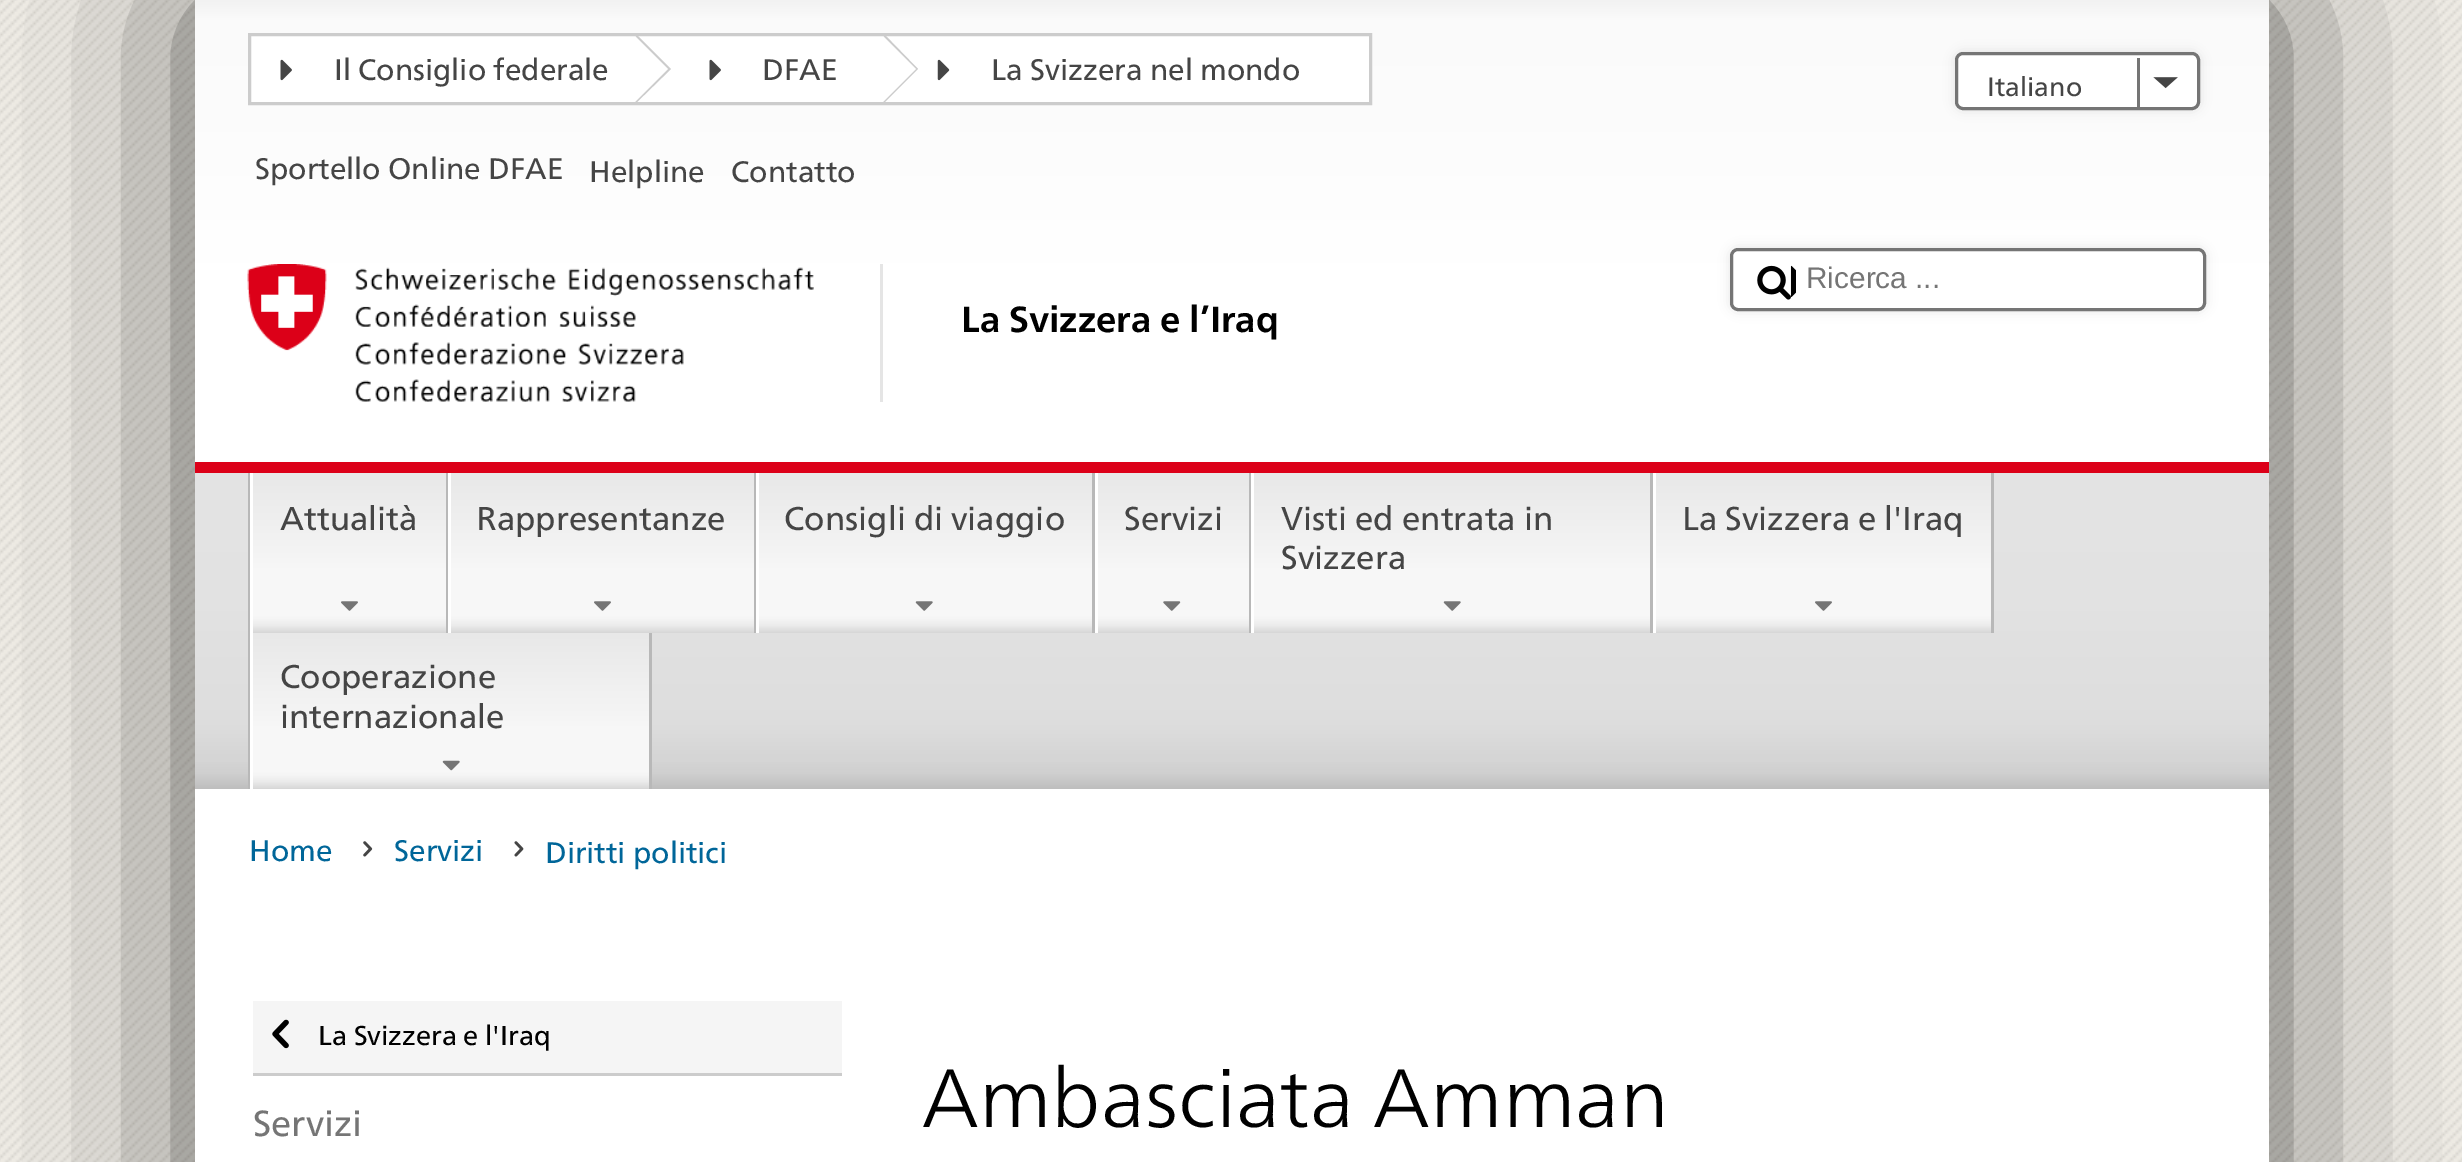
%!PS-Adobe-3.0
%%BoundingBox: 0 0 2462 1162
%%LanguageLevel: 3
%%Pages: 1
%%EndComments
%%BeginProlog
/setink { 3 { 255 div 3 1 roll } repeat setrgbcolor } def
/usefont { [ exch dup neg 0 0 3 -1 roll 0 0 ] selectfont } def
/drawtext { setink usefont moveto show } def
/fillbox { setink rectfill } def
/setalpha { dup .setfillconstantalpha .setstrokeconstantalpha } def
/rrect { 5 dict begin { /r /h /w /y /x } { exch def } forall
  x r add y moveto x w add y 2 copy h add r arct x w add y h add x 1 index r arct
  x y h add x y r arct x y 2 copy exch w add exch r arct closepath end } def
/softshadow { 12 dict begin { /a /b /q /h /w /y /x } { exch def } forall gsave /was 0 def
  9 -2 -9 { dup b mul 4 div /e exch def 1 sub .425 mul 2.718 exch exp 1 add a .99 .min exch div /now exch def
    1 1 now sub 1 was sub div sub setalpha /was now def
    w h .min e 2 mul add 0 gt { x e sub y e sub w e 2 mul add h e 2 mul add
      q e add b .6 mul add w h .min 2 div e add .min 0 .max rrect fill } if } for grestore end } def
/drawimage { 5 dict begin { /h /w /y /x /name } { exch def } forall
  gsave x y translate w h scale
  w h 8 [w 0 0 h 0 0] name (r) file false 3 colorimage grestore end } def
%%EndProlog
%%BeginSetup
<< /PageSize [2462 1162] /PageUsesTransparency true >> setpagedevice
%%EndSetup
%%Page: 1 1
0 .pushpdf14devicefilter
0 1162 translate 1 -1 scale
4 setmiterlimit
0 0 2462 1162 255 255 255 fillbox
(assets/img1.rgb) 0 0 2462 1162 drawimage
0 0 0 setink
195 0 2074 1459 0 99 0.6 softshadow
195 264 2074 898 255 255 255 fillbox
gsave 195 0 moveto 2269 0 lineto 2269 264 lineto 195 264 lineto closepath clip newpath
<< /ShadingType 2 /ColorSpace /DeviceRGB /Coords [1232 0 1232 264] /Extend [true true] /Function << /FunctionType 3 /Domain [0 1] /Functions [<< /FunctionType 2 /Domain [0 1] /C0 [0.949 0.949 0.949] /C1 [0.98 0.98 0.98] /N 1 >> << /FunctionType 2 /Domain [0 1] /C0 [0.98 0.98 0.98] /C1 [1 1 1] /N 1 >>] /Bounds [0.07] /Encode [0 1 0 1] >> >> shfill grestore
249.5 34.5 moveto 1370.5 34.5 lineto 1370.5 103.5 lineto 249.5 103.5 lineto closepath gsave fill grestore
204 204 204 setink
3 setlinewidth
stroke
635 104 moveto 635 33 lineto 671 69 lineto closepath fill
(assets/img2.rgb) 280 59 12 22 drawimage
(Il Consiglio federale) 334 80 /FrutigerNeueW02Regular-Regular 29.75 69 69 69 drawtext
255 255 255 setink
635 102 moveto 635 36 lineto 668 69 lineto closepath fill
204 204 204 setink
883 104 moveto 883 33 lineto 918 69 lineto closepath fill
(assets/img2.rgb) 709 59 12 22 drawimage
(DFAE) 762 80 /FrutigerNeueW02Regular-Regular 29.75 69 69 69 drawtext
255 255 255 setink
883 102 moveto 883 36 lineto 916 69 lineto closepath fill
(assets/img3.rgb) 937 59 13 22 drawimage
(La Svizzera nel mondo) 991 80 /FrutigerNeueW02Regular-Regular 29.75 69 69 69 drawtext
0 0 0 setink
1955 52 245 58 8 5.5 0.1 softshadow
255 255 255 setink
1956.5 53.5 242 55 6.5 rrect gsave fill grestore
117 117 117 setink
stroke
(Italiano) 1987 96 /FrutigerNeueW02Regular-Regular 26.5 69 69 69 drawtext
(assets/img4.rgb) 2153 77 25 12 drawimage
2137 58 3 49 117 117 117 fillbox
(Sportello Online DFAE) 255 179 /FrutigerNeueW02Regular-Regular 29.75 69 69 69 drawtext
(Helpline) 589 182 /FrutigerNeueW02Regular-Regular 29.75 69 69 69 drawtext
(Contatto) 731 182 /FrutigerNeueW02Regular-Regular 29.75 69 69 69 drawtext
0 0 0 setink
1730 248 476 63 8 5.5 0.1 softshadow
255 255 255 setink
1731.5 249.5 473 60 6.5 rrect gsave fill grestore
117 117 117 setink
stroke
(assets/img5.rgb) 1757 265 39 35 drawimage
(Ricerca ...) 1806 288 /LiberationSans-Regular 29.75 117 117 117 drawtext
(assets/img6.rgb) 247 264 567 138 drawimage
880 264 3 138 229 229 229 fillbox
(La Svizzera e l’Iraq) 961 332 /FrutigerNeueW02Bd-Bold 36.25 0 0 0 drawtext
gsave 195 473 moveto 2269 473 lineto 2269 789 lineto 195 789 lineto closepath clip newpath
<< /ShadingType 2 /ColorSpace /DeviceRGB /Coords [1232 473 1232 789] /Extend [true true] /Function << /FunctionType 3 /Domain [0 1] /Functions [<< /FunctionType 2 /Domain [0 1] /C0 [0.894 0.894 0.894] /C1 [0.886 0.886 0.886] /N 1 >> << /FunctionType 2 /Domain [0 1] /C0 [0.886 0.886 0.886] /C1 [0.867 0.867 0.867] /N 1 >> << /FunctionType 2 /Domain [0 1] /C0 [0.867 0.867 0.867] /C1 [0.835 0.835 0.835] /N 1 >> << /FunctionType 2 /Domain [0 1] /C0 [0.835 0.835 0.835] /C1 [0.812 0.812 0.812] /N 1 >> << /FunctionType 2 /Domain [0 1] /C0 [0.812 0.812 0.812] /C1 [0.745 0.745 0.745] /N 1 >>] /Bounds [0.39 0.79 0.91 0.95] /Encode [0 1 0 1 0 1 0 1 0 1] >> >> shfill grestore
195 462 2074 11 220 0 24 fillbox
248 473 2 316 184 184 184 fillbox
gsave 253 473 moveto 446 473 lineto 446 633 lineto 253 633 lineto closepath clip newpath
<< /ShadingType 2 /ColorSpace /DeviceRGB /Coords [349 473 349 633] /Extend [true true] /Function << /FunctionType 3 /Domain [0 1] /Functions [<< /FunctionType 2 /Domain [0 1] /C0 [0.91 0.91 0.91] /C1 [0.969 0.969 0.969] /N 1 >> << /FunctionType 2 /Domain [0 1] /C0 [0.969 0.969 0.969] /C1 [0.969 0.969 0.969] /N 1 >> << /FunctionType 2 /Domain [0 1] /C0 [0.969 0.969 0.969] /C1 [0.961 0.961 0.961] /N 1 >> << /FunctionType 2 /Domain [0 1] /C0 [0.961 0.961 0.961] /C1 [0.925 0.925 0.925] /N 1 >> << /FunctionType 2 /Domain [0 1] /C0 [0.925 0.925 0.925] /C1 [0.843 0.843 0.843] /N 1 >>] /Bounds [0.61 0.89 0.91 0.95] /Encode [0 1 0 1 0 1 0 1 0 1] >> >> shfill grestore
446 473 2 160 184 184 184 fillbox
250 473 3 316 255 255 255 fillbox
(Attualità) 280 530 /FrutigerNeueW02Regular-Regular 33 69 69 69 drawtext
(assets/img7.rgb) 341 601 17 10 drawimage
gsave 451 473 moveto 754 473 lineto 754 633 lineto 451 633 lineto closepath clip newpath
<< /ShadingType 2 /ColorSpace /DeviceRGB /Coords [602 473 602 633] /Extend [true true] /Function << /FunctionType 3 /Domain [0 1] /Functions [<< /FunctionType 2 /Domain [0 1] /C0 [0.91 0.91 0.91] /C1 [0.969 0.969 0.969] /N 1 >> << /FunctionType 2 /Domain [0 1] /C0 [0.969 0.969 0.969] /C1 [0.969 0.969 0.969] /N 1 >> << /FunctionType 2 /Domain [0 1] /C0 [0.969 0.969 0.969] /C1 [0.961 0.961 0.961] /N 1 >> << /FunctionType 2 /Domain [0 1] /C0 [0.961 0.961 0.961] /C1 [0.925 0.925 0.925] /N 1 >> << /FunctionType 2 /Domain [0 1] /C0 [0.925 0.925 0.925] /C1 [0.843 0.843 0.843] /N 1 >>] /Bounds [0.61 0.89 0.91 0.95] /Encode [0 1 0 1 0 1 0 1 0 1] >> >> shfill grestore
754 473 2 160 184 184 184 fillbox
448 473 3 160 255 255 255 fillbox
(Rappresentanze) 476 530 /FrutigerNeueW02Regular-Regular 33 69 69 69 drawtext
(assets/img7.rgb) 594 601 17 10 drawimage
gsave 759 473 moveto 1092 473 lineto 1092 633 lineto 759 633 lineto closepath clip newpath
<< /ShadingType 2 /ColorSpace /DeviceRGB /Coords [925 473 925 633] /Extend [true true] /Function << /FunctionType 3 /Domain [0 1] /Functions [<< /FunctionType 2 /Domain [0 1] /C0 [0.91 0.91 0.91] /C1 [0.969 0.969 0.969] /N 1 >> << /FunctionType 2 /Domain [0 1] /C0 [0.969 0.969 0.969] /C1 [0.969 0.969 0.969] /N 1 >> << /FunctionType 2 /Domain [0 1] /C0 [0.969 0.969 0.969] /C1 [0.961 0.961 0.961] /N 1 >> << /FunctionType 2 /Domain [0 1] /C0 [0.961 0.961 0.961] /C1 [0.925 0.925 0.925] /N 1 >> << /FunctionType 2 /Domain [0 1] /C0 [0.925 0.925 0.925] /C1 [0.843 0.843 0.843] /N 1 >>] /Bounds [0.61 0.89 0.91 0.95] /Encode [0 1 0 1 0 1 0 1 0 1] >> >> shfill grestore
1092 473 3 160 184 184 184 fillbox
756 473 3 160 255 255 255 fillbox
(Consigli di viaggio) 784 530 /FrutigerNeueW02Regular-Regular 33 69 69 69 drawtext
(assets/img8.rgb) 915 601 18 10 drawimage
gsave 1098 473 moveto 1249 473 lineto 1249 633 lineto 1098 633 lineto closepath clip newpath
<< /ShadingType 2 /ColorSpace /DeviceRGB /Coords [1173 473 1173 633] /Extend [true true] /Function << /FunctionType 3 /Domain [0 1] /Functions [<< /FunctionType 2 /Domain [0 1] /C0 [0.91 0.91 0.91] /C1 [0.969 0.969 0.969] /N 1 >> << /FunctionType 2 /Domain [0 1] /C0 [0.969 0.969 0.969] /C1 [0.969 0.969 0.969] /N 1 >> << /FunctionType 2 /Domain [0 1] /C0 [0.969 0.969 0.969] /C1 [0.961 0.961 0.961] /N 1 >> << /FunctionType 2 /Domain [0 1] /C0 [0.961 0.961 0.961] /C1 [0.925 0.925 0.925] /N 1 >> << /FunctionType 2 /Domain [0 1] /C0 [0.925 0.925 0.925] /C1 [0.843 0.843 0.843] /N 1 >>] /Bounds [0.61 0.89 0.91 0.95] /Encode [0 1 0 1 0 1 0 1 0 1] >> >> shfill grestore
1249 473 2 160 184 184 184 fillbox
1095 473 3 160 255 255 255 fillbox
(Servizi) 1124 530 /FrutigerNeueW02Regular-Regular 33 69 69 69 drawtext
(assets/img9.rgb) 1163 601 18 10 drawimage
gsave 1254 473 moveto 1650 473 lineto 1650 633 lineto 1254 633 lineto closepath clip newpath
<< /ShadingType 2 /ColorSpace /DeviceRGB /Coords [1452 473 1452 633] /Extend [true true] /Function << /FunctionType 3 /Domain [0 1] /Functions [<< /FunctionType 2 /Domain [0 1] /C0 [0.91 0.91 0.91] /C1 [0.969 0.969 0.969] /N 1 >> << /FunctionType 2 /Domain [0 1] /C0 [0.969 0.969 0.969] /C1 [0.969 0.969 0.969] /N 1 >> << /FunctionType 2 /Domain [0 1] /C0 [0.969 0.969 0.969] /C1 [0.961 0.961 0.961] /N 1 >> << /FunctionType 2 /Domain [0 1] /C0 [0.961 0.961 0.961] /C1 [0.925 0.925 0.925] /N 1 >> << /FunctionType 2 /Domain [0 1] /C0 [0.925 0.925 0.925] /C1 [0.843 0.843 0.843] /N 1 >>] /Bounds [0.61 0.89 0.91 0.95] /Encode [0 1 0 1 0 1 0 1 0 1] >> >> shfill grestore
1650 473 3 160 184 184 184 fillbox
1251 473 3 160 255 255 255 fillbox
(Visti ed entrata in) 1281 530 /FrutigerNeueW02Regular-Regular 33 69 69 69 drawtext
(Svizzera) 1281 569 /FrutigerNeueW02Regular-Regular 33 69 69 69 drawtext
(assets/img8.rgb) 1443 601 18 10 drawimage
gsave 1656 473 moveto 1991 473 lineto 1991 633 lineto 1656 633 lineto closepath clip newpath
<< /ShadingType 2 /ColorSpace /DeviceRGB /Coords [1823 473 1823 633] /Extend [true true] /Function << /FunctionType 3 /Domain [0 1] /Functions [<< /FunctionType 2 /Domain [0 1] /C0 [0.91 0.91 0.91] /C1 [0.969 0.969 0.969] /N 1 >> << /FunctionType 2 /Domain [0 1] /C0 [0.969 0.969 0.969] /C1 [0.969 0.969 0.969] /N 1 >> << /FunctionType 2 /Domain [0 1] /C0 [0.969 0.969 0.969] /C1 [0.961 0.961 0.961] /N 1 >> << /FunctionType 2 /Domain [0 1] /C0 [0.961 0.961 0.961] /C1 [0.925 0.925 0.925] /N 1 >> << /FunctionType 2 /Domain [0 1] /C0 [0.925 0.925 0.925] /C1 [0.843 0.843 0.843] /N 1 >>] /Bounds [0.61 0.89 0.91 0.95] /Encode [0 1 0 1 0 1 0 1 0 1] >> >> shfill grestore
1991 473 3 160 184 184 184 fillbox
1653 473 3 160 255 255 255 fillbox
(La Svizzera e l'Iraq) 1682 530 /FrutigerNeueW02Regular-Regular 33 69 69 69 drawtext
(assets/img7.rgb) 1815 601 17 10 drawimage
gsave 253 633 moveto 649 633 lineto 649 789 lineto 253 789 lineto closepath clip newpath
<< /ShadingType 2 /ColorSpace /DeviceRGB /Coords [451 633 451 789] /Extend [true true] /Function << /FunctionType 3 /Domain [0 1] /Functions [<< /FunctionType 2 /Domain [0 1] /C0 [0.91 0.91 0.91] /C1 [0.969 0.969 0.969] /N 1 >> << /FunctionType 2 /Domain [0 1] /C0 [0.969 0.969 0.969] /C1 [0.969 0.969 0.969] /N 1 >> << /FunctionType 2 /Domain [0 1] /C0 [0.969 0.969 0.969] /C1 [0.961 0.961 0.961] /N 1 >> << /FunctionType 2 /Domain [0 1] /C0 [0.961 0.961 0.961] /C1 [0.925 0.925 0.925] /N 1 >> << /FunctionType 2 /Domain [0 1] /C0 [0.925 0.925 0.925] /C1 [0.843 0.843 0.843] /N 1 >>] /Bounds [0.61 0.89 0.91 0.95] /Encode [0 1 0 1 0 1 0 1 0 1] >> >> shfill grestore
649 633 3 156 184 184 184 fillbox
(Cooperazione) 280 688 /FrutigerNeueW02Regular-Regular 33 69 69 69 drawtext
(internazionale) 280 728 /FrutigerNeueW02Regular-Regular 33 69 69 69 drawtext
(assets/img10.rgb) 442 760 18 11 drawimage
(Home) 249 861 /FrutigerNeueW02Regular-Regular 29.75 0 102 153 drawtext
(assets/img11.rgb) 363 841 10 16 drawimage
(Servizi) 394 861 /FrutigerNeueW02Regular-Regular 29.75 0 102 153 drawtext
(assets/img12.rgb) 514 841 10 16 drawimage
(Diritti politici) 545 863 /FrutigerNeueW02Regular-Regular 29.75 0 102 153 drawtext
253 1001 589 72 245 245 245 fillbox
253 1073 589 3 204 204 204 fillbox
(assets/img13.rgb) 272 1019 17 30 drawimage
(La Svizzera e l'Iraq) 318 1045 /FrutigerNeueW02Regular-Regular 27.25 0 0 0 drawtext
(Servizi) 253 1136 /FrutigerNeueW02Regular-Regular 36.25 117 117 117 drawtext
(Ambasciata Amman) 922 1127 /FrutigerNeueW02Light-Light 82.5 0 0 0 drawtext
.poppdf14devicefilter showpage
%%EOF
